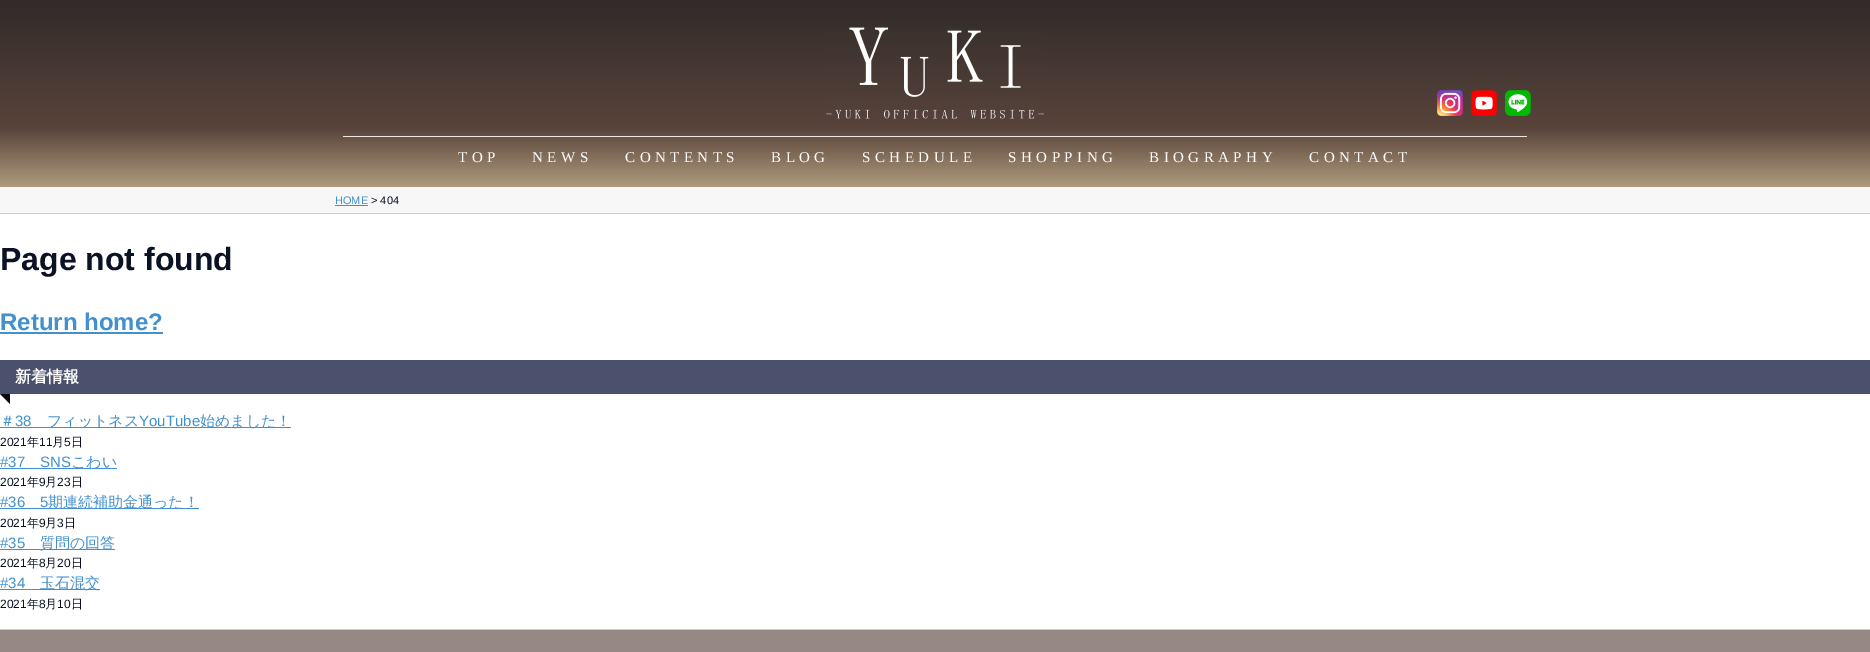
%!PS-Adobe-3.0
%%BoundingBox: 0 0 1870 652
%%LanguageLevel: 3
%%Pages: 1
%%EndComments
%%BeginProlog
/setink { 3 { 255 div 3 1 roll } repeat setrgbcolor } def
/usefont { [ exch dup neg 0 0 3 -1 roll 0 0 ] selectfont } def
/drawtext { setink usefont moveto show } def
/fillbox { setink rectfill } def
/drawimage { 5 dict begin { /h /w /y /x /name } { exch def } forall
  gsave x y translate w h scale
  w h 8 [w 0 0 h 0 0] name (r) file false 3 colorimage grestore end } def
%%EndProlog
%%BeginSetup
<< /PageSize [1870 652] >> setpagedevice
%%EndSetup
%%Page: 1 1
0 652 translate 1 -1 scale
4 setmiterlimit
0 0 1870 652 255 255 255 fillbox
gsave 0 0 moveto 1870 0 lineto 1870 187 lineto 0 187 lineto closepath clip newpath
<< /ShadingType 2 /ColorSpace /DeviceRGB /Coords [935 0 935 187] /Extend [true true] /Function << /FunctionType 3 /Domain [0 1] /Functions [<< /FunctionType 2 /Domain [0 1] /C0 [0.192 0.169 0.161] /C1 [0.345 0.263 0.231] /N 1 >> << /FunctionType 2 /Domain [0 1] /C0 [0.345 0.263 0.231] /C1 [0.686 0.608 0.486] /N 1 >>] /Bounds [0.68] /Encode [0 1 0 1] >> >> shfill grestore
(assets/img1.rgb) 826 27 218 92 drawimage
(assets/img2.rgb) 1437 90 26 26 drawimage
(assets/img3.rgb) 1471 90 26 26 drawimage
(assets/img4.rgb) 1505 90 26 26 drawimage
343 136 1184 1 239 231 229 fillbox
/LiberationSerif-Regular 15 usefont
255 255 255 setink
458 162 moveto 4.5 0 (TOP) ashow
532 162 moveto 4.5 0 (NEWS) ashow
625 162 moveto 4.5 0 (CONTENTS) ashow
771 162 moveto 4.5 0 (BLOG) ashow
862 162 moveto 4.5 0 (SCHEDULE) ashow
1008 162 moveto 4.5 0 (SHOPPING) ashow
1149 162 moveto 4.5 0 (BIOGRAPHY) ashow
1309 162 moveto 4.5 0 (CONTACT) ashow
0 187 1870 26 247 247 247 fillbox
0 213 1870 1 205 205 205 fillbox
(HOME) 335 204 /LiberationSans-Regular 11 66 144 206 drawtext
335 205 33 1 66 144 206 fillbox
(> 404) 371 204 /LiberationSans-Regular 11 11 18 36 drawtext
(Page not found) 0 270 /LiberationSans-Bold 32 11 18 36 drawtext
(Return home?) 0 330 /LiberationSans-Bold 24 66 144 206 drawtext
0 332 163 2 66 144 206 fillbox
0 360 1870 34 75 80 109 fillbox
(新着情報) 15 382 /WenQuanYiZenHei-Bold 16 255 255 255 drawtext
11 11 14 setink
0 394 moveto 10 394 lineto 10 404 lineto closepath fill
(＃) 0 426 /WenQuanYiZenHei-Medium 15 66 144 206 drawtext
(38) 15 426 /LiberationSans-Regular 15 66 144 206 drawtext
0 427 291 1 66 144 206 fillbox
(フィットネス) 47 426 /WenQuanYiZenHei-Medium 15 66 144 206 drawtext
(YouTube) 139 426 /LiberationSans-Regular 15 66 144 206 drawtext
(始めました！) 200 426 /WenQuanYiZenHei-Medium 15 66 144 206 drawtext
(2021) 0 446 /LiberationSans-Regular 12 11 18 36 drawtext
(年) 27 446 /WenQuanYiZenHei-Medium 12 11 18 36 drawtext
(11) 39 446 /LiberationSans-Regular 12 11 18 36 drawtext
(月) 52 446 /WenQuanYiZenHei-Medium 12 11 18 36 drawtext
(5) 64 446 /LiberationSans-Regular 12 11 18 36 drawtext
(日) 71 446 /WenQuanYiZenHei-Medium 12 11 18 36 drawtext
(#37) 0 467 /LiberationSans-Regular 15 66 144 206 drawtext
(SNS) 40 467 /LiberationSans-Regular 15 66 144 206 drawtext
0 468 117 1 66 144 206 fillbox
(こわい) 71 467 /WenQuanYiZenHei-Medium 15 66 144 206 drawtext
(2021) 0 486 /LiberationSans-Regular 12 11 18 36 drawtext
(年) 27 486 /WenQuanYiZenHei-Medium 12 11 18 36 drawtext
(9) 39 486 /LiberationSans-Regular 12 11 18 36 drawtext
(月) 45 486 /WenQuanYiZenHei-Medium 12 11 18 36 drawtext
(23) 57 486 /LiberationSans-Regular 12 11 18 36 drawtext
(日) 71 486 /WenQuanYiZenHei-Medium 12 11 18 36 drawtext
(#36) 0 507 /LiberationSans-Regular 15 66 144 206 drawtext
0 508 199 1 66 144 206 fillbox
(5) 40 507 /LiberationSans-Regular 15 66 144 206 drawtext
(期連続補助金通った！) 48 507 /WenQuanYiZenHei-Medium 15 66 144 206 drawtext
(2021) 0 527 /LiberationSans-Regular 12 11 18 36 drawtext
(年) 27 527 /WenQuanYiZenHei-Medium 12 11 18 36 drawtext
(9) 39 527 /LiberationSans-Regular 12 11 18 36 drawtext
(月) 45 527 /WenQuanYiZenHei-Medium 12 11 18 36 drawtext
(3) 57 527 /LiberationSans-Regular 12 11 18 36 drawtext
(日) 64 527 /WenQuanYiZenHei-Medium 12 11 18 36 drawtext
(#35) 0 548 /LiberationSans-Regular 15 66 144 206 drawtext
0 549 115 1 66 144 206 fillbox
(質問の回答) 40 548 /WenQuanYiZenHei-Medium 15 66 144 206 drawtext
(2021) 0 567 /LiberationSans-Regular 12 11 18 36 drawtext
(年) 27 567 /WenQuanYiZenHei-Medium 12 11 18 36 drawtext
(8) 39 567 /LiberationSans-Regular 12 11 18 36 drawtext
(月) 45 567 /WenQuanYiZenHei-Medium 12 11 18 36 drawtext
(20) 57 567 /LiberationSans-Regular 12 11 18 36 drawtext
(日) 71 567 /WenQuanYiZenHei-Medium 12 11 18 36 drawtext
(#34) 0 588 /LiberationSans-Regular 15 66 144 206 drawtext
0 589 100 1 66 144 206 fillbox
(玉石混交) 40 588 /WenQuanYiZenHei-Medium 15 66 144 206 drawtext
(2021) 0 608 /LiberationSans-Regular 12 11 18 36 drawtext
(年) 27 608 /WenQuanYiZenHei-Medium 12 11 18 36 drawtext
(8) 39 608 /LiberationSans-Regular 12 11 18 36 drawtext
(月) 45 608 /WenQuanYiZenHei-Medium 12 11 18 36 drawtext
(10) 57 608 /LiberationSans-Regular 12 11 18 36 drawtext
(日) 71 608 /WenQuanYiZenHei-Medium 12 11 18 36 drawtext
0 630 1870 22 150 136 132 fillbox
0 629 1870 1 205 205 205 fillbox
showpage
%%EOF
